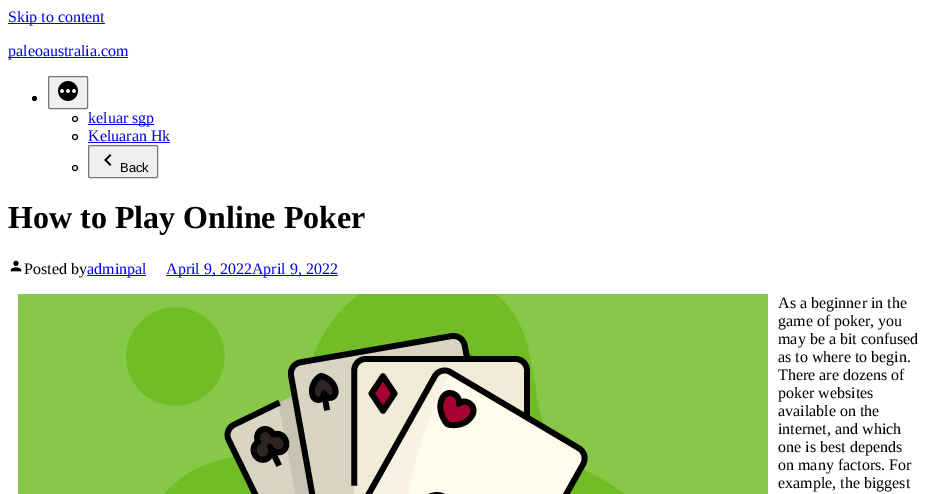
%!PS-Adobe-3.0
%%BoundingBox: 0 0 928 494
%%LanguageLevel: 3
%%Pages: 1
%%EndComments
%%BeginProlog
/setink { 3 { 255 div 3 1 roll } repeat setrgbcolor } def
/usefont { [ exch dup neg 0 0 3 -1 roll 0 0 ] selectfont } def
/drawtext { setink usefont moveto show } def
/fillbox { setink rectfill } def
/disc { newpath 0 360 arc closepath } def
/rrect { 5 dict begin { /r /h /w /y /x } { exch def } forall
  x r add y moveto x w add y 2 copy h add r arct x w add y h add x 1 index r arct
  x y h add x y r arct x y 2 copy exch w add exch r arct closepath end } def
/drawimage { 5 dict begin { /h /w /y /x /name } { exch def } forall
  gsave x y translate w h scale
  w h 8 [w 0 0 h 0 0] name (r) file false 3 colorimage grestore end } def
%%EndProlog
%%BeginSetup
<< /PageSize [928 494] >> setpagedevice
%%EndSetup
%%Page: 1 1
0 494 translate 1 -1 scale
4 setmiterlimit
0 0 928 494 255 255 255 fillbox
8 23 97 1 0 0 238 fillbox
(Skip to content) 8 22 /LiberationSerif-Regular 16 0 0 238 drawtext
8 57 120 1 0 0 238 fillbox
(paleoaustralia.com) 8 56 /LiberationSerif-Regular 16 0 0 238 drawtext
0 0 0 setink
34.5 98.5 2.5 disc fill
239 239 239 setink
48.5 76.5 39 32 1.5 rrect gsave fill grestore
118 118 118 setink
stroke
(assets/img1.rgb) 58 81 20 20 drawimage
0 0 0 setink
75 119 2.5 disc stroke
88 124 66 1 0 0 238 fillbox
(keluar sgp) 88 123 /LiberationSerif-Regular 16 0 0 238 drawtext
0 0 0 setink
75 137 2.5 disc stroke
(Keluaran Hk) 88 141 /LiberationSerif-Regular 16 0 0 238 drawtext
88 142 82 1 0 0 238 fillbox
0 0 0 setink
75 168 2.5 disc stroke
239 239 239 setink
88.5 145.5 69 32 1.5 rrect gsave fill grestore
118 118 118 setink
stroke
(assets/img2.rgb) 104 154 8 12 drawimage
(Back) 120 172 /LiberationSans-Regular 13 0 0 0 drawtext
(How to Play Online Poker) 8 228 /LiberationSerif-Bold 32 0 0 0 drawtext
(assets/img3.rgb) 10 260 12 12 drawimage
(Posted by) 24 274 /LiberationSerif-Regular 16 0 0 0 drawtext
87 275 59 1 0 0 238 fillbox
(adminpal) 87 274 /LiberationSerif-Regular 16 0 0 238 drawtext
166 275 172 1 0 0 238 fillbox
(April 9, 2022April 9, 2022) 166 274 /LiberationSerif-Regular 16 0 0 238 drawtext
(assets/img4.rgb) 18 294 750 200 drawimage
(As a beginner in the) 778 308 /LiberationSerif-Regular 16 0 0 0 drawtext
(game of poker, you) 778 326 /LiberationSerif-Regular 16 0 0 0 drawtext
(may be a bit confused) 778 344 /LiberationSerif-Regular 16 0 0 0 drawtext
(as to where to begin.) 778 362 /LiberationSerif-Regular 16 0 0 0 drawtext
(There are dozens of) 778 380 /LiberationSerif-Regular 16 0 0 0 drawtext
(poker websites) 778 398 /LiberationSerif-Regular 16 0 0 0 drawtext
(available on the) 778 416 /LiberationSerif-Regular 16 0 0 0 drawtext
(internet, and which) 778 434 /LiberationSerif-Regular 16 0 0 0 drawtext
(one is best depends) 778 452 /LiberationSerif-Regular 16 0 0 0 drawtext
(on many factors. For) 778 470 /LiberationSerif-Regular 16 0 0 0 drawtext
(example, the biggest) 778 488 /LiberationSerif-Regular 16 0 0 0 drawtext
showpage
%%EOF
